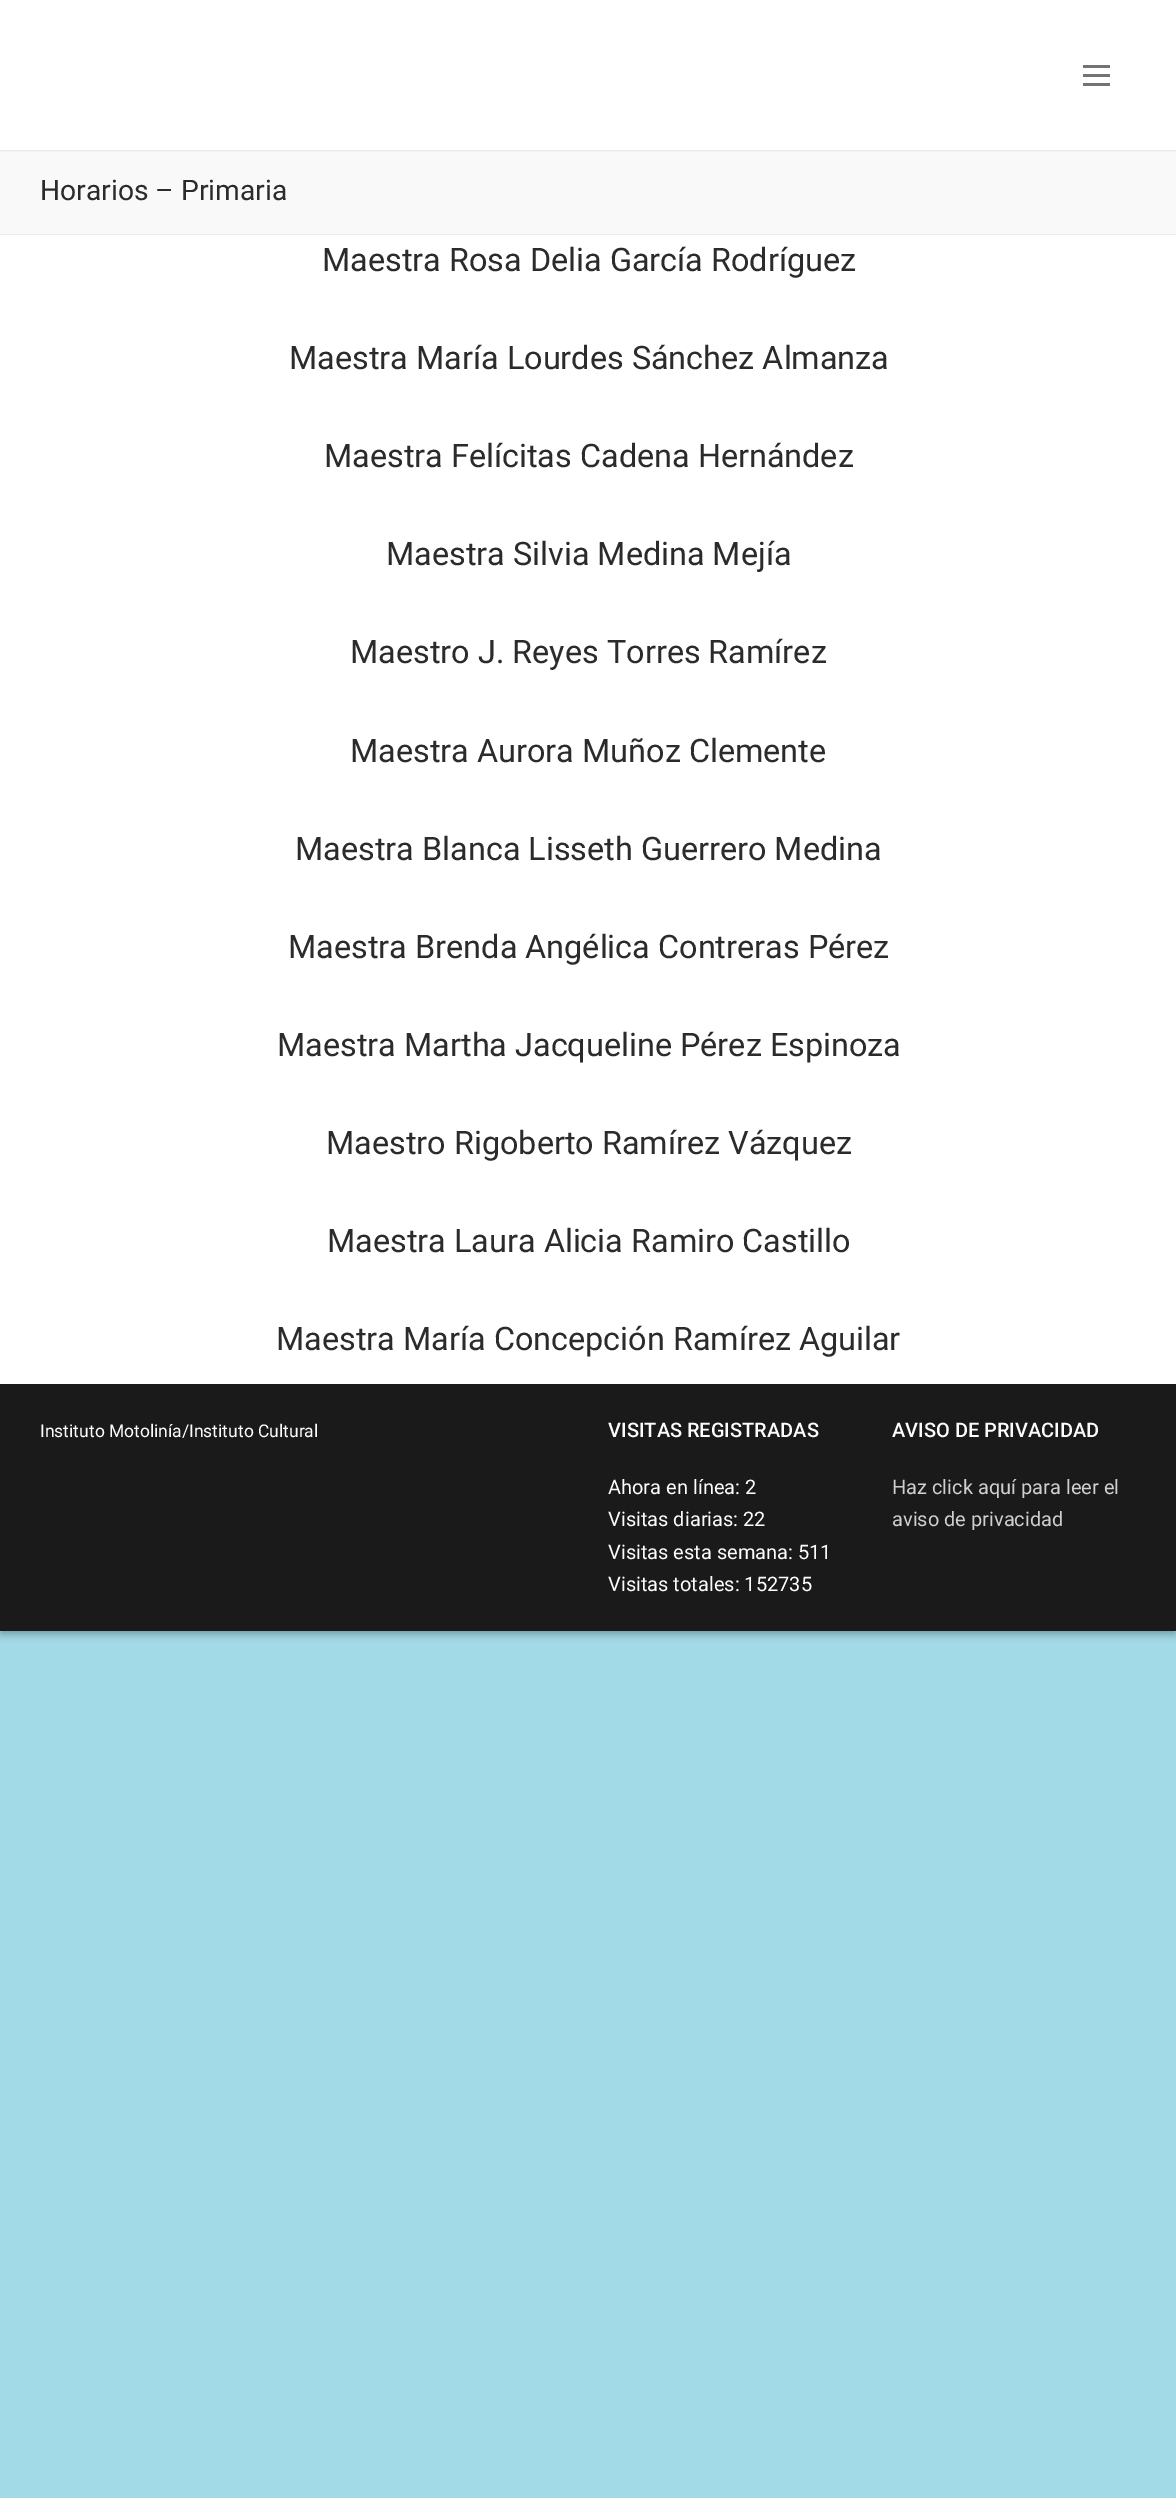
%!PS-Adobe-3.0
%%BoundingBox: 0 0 1176 2498
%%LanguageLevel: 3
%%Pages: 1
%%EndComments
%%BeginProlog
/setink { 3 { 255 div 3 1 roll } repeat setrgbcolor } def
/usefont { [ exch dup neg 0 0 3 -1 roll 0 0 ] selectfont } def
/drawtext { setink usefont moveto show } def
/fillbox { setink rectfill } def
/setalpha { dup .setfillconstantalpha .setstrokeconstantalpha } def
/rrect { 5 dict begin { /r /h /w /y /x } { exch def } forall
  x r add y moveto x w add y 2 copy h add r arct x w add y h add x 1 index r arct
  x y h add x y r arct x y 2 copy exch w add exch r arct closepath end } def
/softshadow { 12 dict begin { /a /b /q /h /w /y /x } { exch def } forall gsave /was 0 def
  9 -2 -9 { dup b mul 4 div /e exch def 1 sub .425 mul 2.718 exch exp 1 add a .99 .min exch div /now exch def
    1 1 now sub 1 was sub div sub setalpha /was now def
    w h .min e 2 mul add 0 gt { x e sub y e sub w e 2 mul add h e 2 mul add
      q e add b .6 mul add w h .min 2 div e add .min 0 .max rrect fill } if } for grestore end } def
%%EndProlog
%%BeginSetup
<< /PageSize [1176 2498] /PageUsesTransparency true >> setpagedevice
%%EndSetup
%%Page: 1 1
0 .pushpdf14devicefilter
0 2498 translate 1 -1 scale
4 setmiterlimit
0 0 1176 2498 162 218 232 fillbox
0 0 0 setink
0 4 1176 1631 0 4 0.23 softshadow
5 9 1166 1621 0 4 0.16 softshadow
0 150 1176 84 249 249 249 fillbox
225 229 234 setink
0 1 1176 150 0 1 1 softshadow
0 0 1176 150 255 255 255 fillbox
1083 74 27 3 115 115 115 fillbox
1083 65 27 3 115 115 115 fillbox
1083 83 27 3 115 115 115 fillbox
0 234 1176 1 234 236 238 fillbox
(Horarios – Primaria) 40 200 /Roboto-Regular 28.25 43 43 43 drawtext
0 235 1176 1149 255 255 255 fillbox
(Maestra Rosa Delia García Rodríguez) 322 271 /Roboto-Regular 32.4 43 43 43 drawtext
(Maestra María Lourdes Sánchez Almanza) 289 369 /Roboto-Regular 32.4 43 43 43 drawtext
(Maestra Felícitas Cadena Hernández) 324 467 /Roboto-Regular 32.4 43 43 43 drawtext
(Maestra Silvia Medina Mejía) 386 565 /Roboto-Regular 32.4 43 43 43 drawtext
(Maestro J. Reyes Torres Ramírez) 350 663 /Roboto-Regular 32.4 43 43 43 drawtext
(Maestra Aurora Muñoz Clemente) 350 762 /Roboto-Regular 32.4 43 43 43 drawtext
(Maestra Blanca Lisseth Guerrero Medina) 295 860 /Roboto-Regular 32.4 43 43 43 drawtext
(Maestra Brenda Angélica Contreras Pérez) 288 958 /Roboto-Regular 32.4 43 43 43 drawtext
(Maestra Martha Jacqueline Pérez Espinoza) 277 1056 /Roboto-Regular 32.4 43 43 43 drawtext
(Maestro Rigoberto Ramírez Vázquez) 326 1154 /Roboto-Regular 32.4 43 43 43 drawtext
(Maestra Laura Alicia Ramiro Castillo) 327 1252 /Roboto-Regular 32.4 43 43 43 drawtext
(Maestra María Concepción Ramírez Aguilar) 276 1350 /Roboto-Regular 32.4 43 43 43 drawtext
0 1384 1176 247 26 26 26 fillbox
(Instituto Motolinía/Instituto Cultural) 40 1437 /Roboto-Regular 17.5 253 253 253 drawtext
(VISITAS REGISTRADAS) 608 1437 /Roboto-Medium 20 253 253 253 drawtext
(Ahora en línea: 2) 608 1494 /Roboto-Regular 20 253 253 253 drawtext
(Visitas diarias: 22) 608 1526 /Roboto-Regular 20 253 253 253 drawtext
(Visitas esta semana: 511) 608 1559 /Roboto-Regular 20 253 253 253 drawtext
(Visitas totales: 152735) 608 1591 /Roboto-Regular 20 253 253 253 drawtext
(AVISO DE PRIVACIDAD) 892 1437 /Roboto-Medium 20 253 253 253 drawtext
(Haz click aquí para leer el) 892 1494 /Roboto-Regular 20 207 207 207 drawtext
(aviso de privacidad) 892 1526 /Roboto-Regular 20 207 207 207 drawtext
.poppdf14devicefilter showpage
%%EOF
